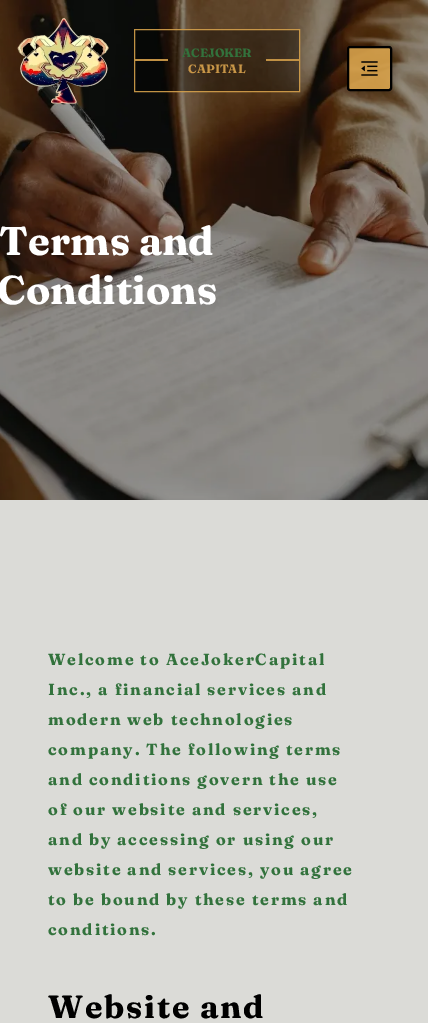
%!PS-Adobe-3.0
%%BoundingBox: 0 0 428 1023
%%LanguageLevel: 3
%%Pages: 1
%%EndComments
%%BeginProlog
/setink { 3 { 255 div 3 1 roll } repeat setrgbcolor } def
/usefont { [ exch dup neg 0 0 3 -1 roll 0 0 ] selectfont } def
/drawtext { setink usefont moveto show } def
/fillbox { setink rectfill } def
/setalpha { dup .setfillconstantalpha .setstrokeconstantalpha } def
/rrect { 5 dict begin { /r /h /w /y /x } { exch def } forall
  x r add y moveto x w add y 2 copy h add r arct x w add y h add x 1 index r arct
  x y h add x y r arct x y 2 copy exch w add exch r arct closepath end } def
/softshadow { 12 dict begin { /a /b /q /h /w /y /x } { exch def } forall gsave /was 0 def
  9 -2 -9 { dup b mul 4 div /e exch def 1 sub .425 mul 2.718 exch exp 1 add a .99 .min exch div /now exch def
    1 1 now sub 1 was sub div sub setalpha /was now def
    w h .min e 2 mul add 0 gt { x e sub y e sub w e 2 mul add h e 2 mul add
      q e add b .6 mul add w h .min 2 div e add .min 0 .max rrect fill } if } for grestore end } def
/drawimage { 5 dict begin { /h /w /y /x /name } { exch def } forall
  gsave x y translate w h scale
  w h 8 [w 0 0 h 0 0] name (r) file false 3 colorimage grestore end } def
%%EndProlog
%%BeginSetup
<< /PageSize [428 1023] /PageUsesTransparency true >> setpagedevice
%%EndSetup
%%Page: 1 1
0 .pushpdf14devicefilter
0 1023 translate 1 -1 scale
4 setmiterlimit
0 0 428 1023 219 219 215 fillbox
(assets/img3.rgb) 0 0 428 500 drawimage
(assets/img1.rgb) 17 18 92 86 drawimage
0.36 setalpha
134 29 166 63 0 0 0 fillbox
0.88 setalpha
219 165 77 setink
134.5 29.5 165 62 rectstroke
1 setalpha
135 59 33 2 193 145 68 fillbox
(ACEJOKER) 182 57 /Fraunces-Bold 12 50 114 60 drawtext
(CAPITAL) 188 73 /Fraunces-Bold 12 200 150 71 drawtext
266 59 33 2 193 145 68 fillbox
gsave
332 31 moveto 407 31 lineto 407 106 lineto 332 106 lineto closepath 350 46 moveto 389 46 lineto 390.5 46 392 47.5 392 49 curveto 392 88 lineto 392 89.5 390.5 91 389 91 curveto 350 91 lineto 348.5 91 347 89.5 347 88 curveto 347 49 lineto 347 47.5 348.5 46 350 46 curveto closepath eoclip newpath
0 0 0 setink
347 46 45 45 3 4.5 0.3 softshadow
grestore
0.88 setalpha
219 165 77 setink
348 47 43 43 2 rrect fill
1 setalpha
0 0 0 setink
2 setlinewidth
348 47 43 43 2 rrect stroke
(assets/img2.rgb) 361 61 17 15 drawimage
(Terms and) -1 255 /Fraunces-Bold 40 255 255 255 drawtext
(Conditions) -3 304 /Fraunces-Bold 40 255 255 255 drawtext
/Fraunces-Bold 16 usefont
50 114 60 setink
48 665 moveto 1.8 0 (Welcome to AceJokerCapital) ashow
48 695 moveto 1.8 0 (Inc., a financial services and) ashow
48 725 moveto 1.8 0 (modern web technologies) ashow
48 755 moveto 1.8 0 (company. The following terms) ashow
48 785 moveto 1.8 0 (and conditions govern the use) ashow
48 815 moveto 1.8 0 (of our website and services,) ashow
48 845 moveto 1.8 0 (and by accessing or using our) ashow
48 875 moveto 1.8 0 (website and services, you agree) ashow
48 905 moveto 1.8 0 (to be bound by these terms and) ashow
48 935 moveto 1.8 0 (conditions.) ashow
/Fraunces-Bold 32 usefont
0 0 0 setink
48 1018 moveto 1.8 0 (Website and) ashow
.poppdf14devicefilter showpage
%%EOF
